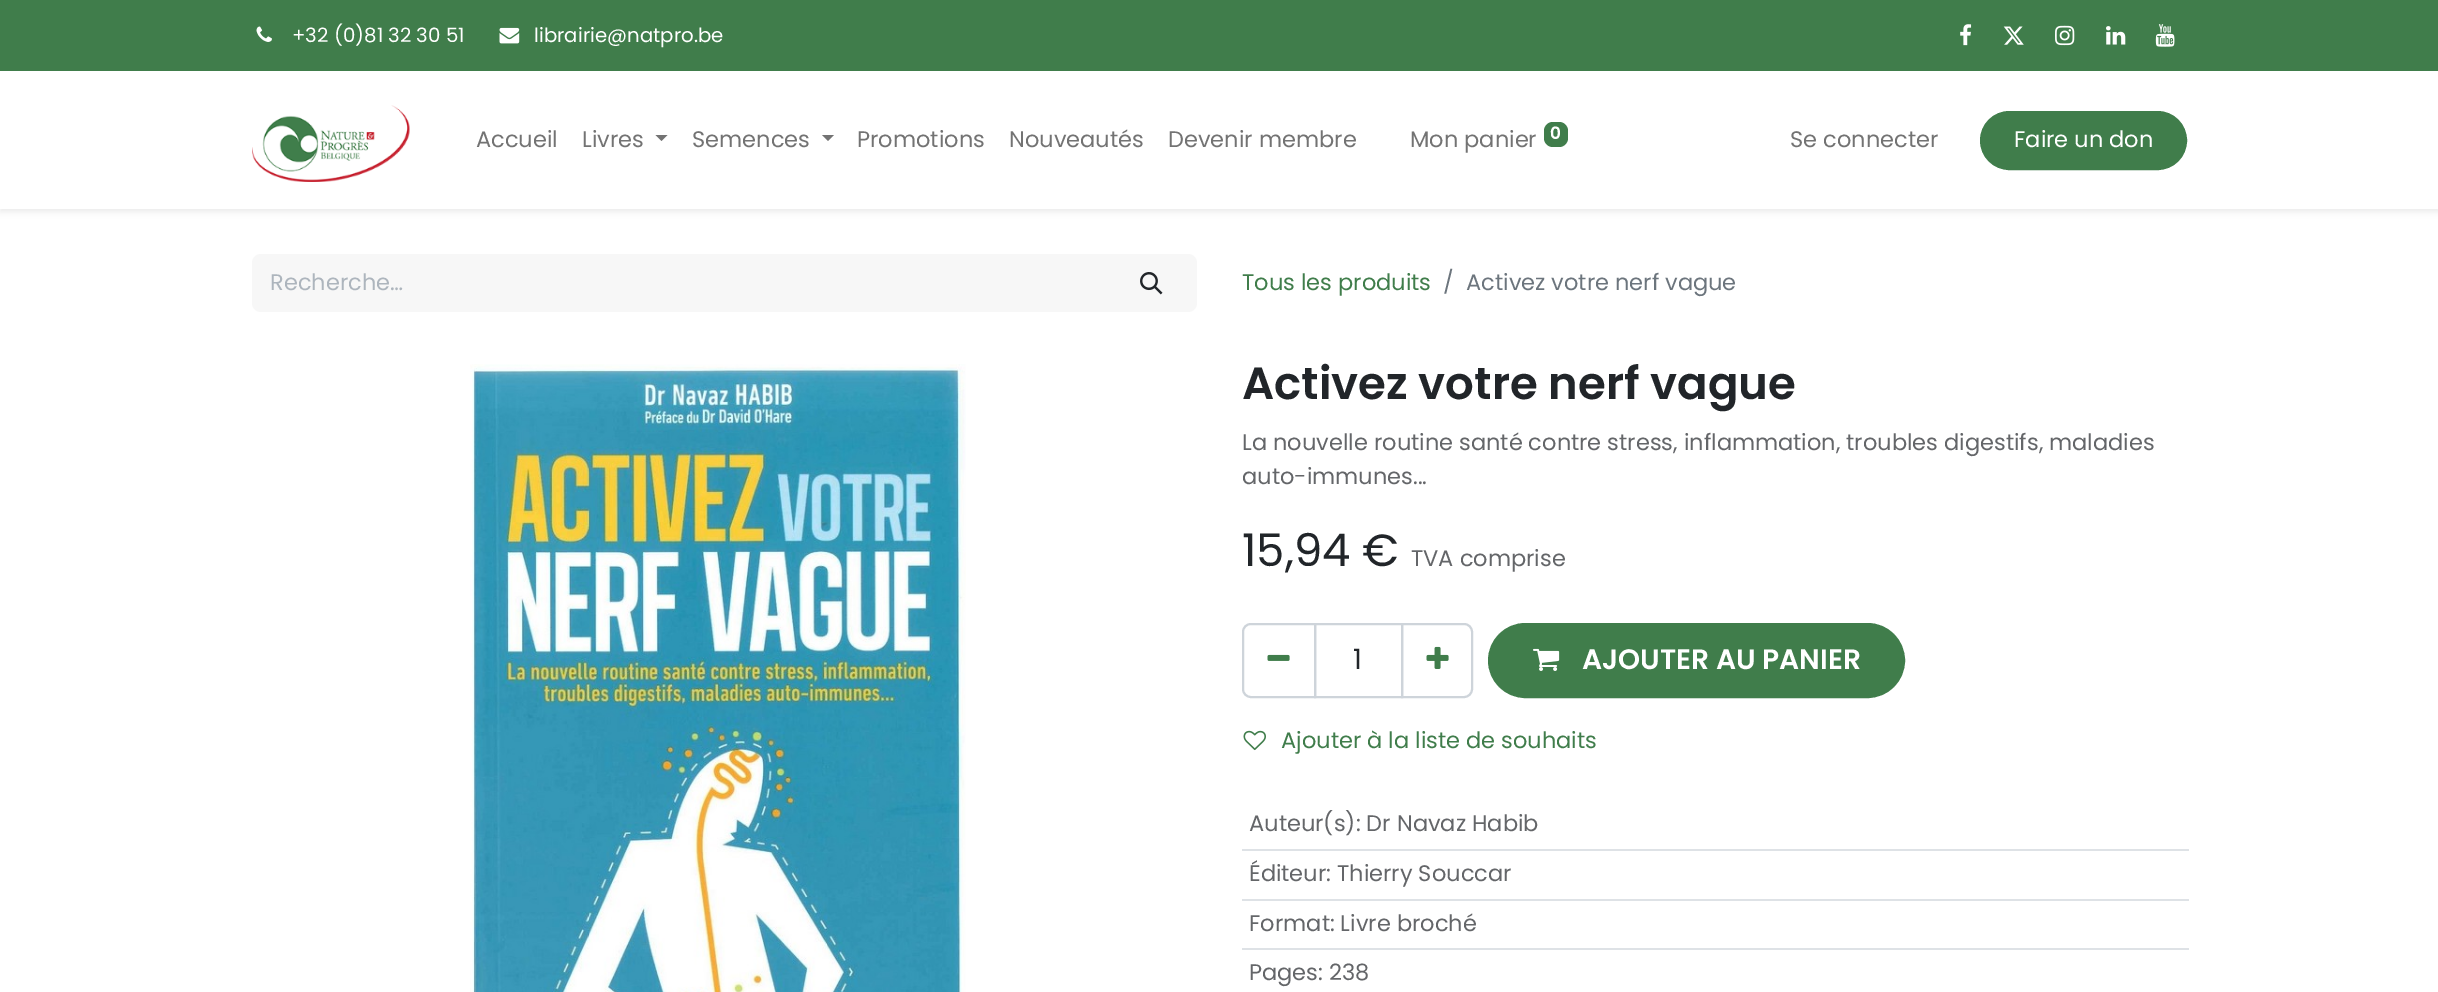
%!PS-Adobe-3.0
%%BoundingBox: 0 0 2438 992
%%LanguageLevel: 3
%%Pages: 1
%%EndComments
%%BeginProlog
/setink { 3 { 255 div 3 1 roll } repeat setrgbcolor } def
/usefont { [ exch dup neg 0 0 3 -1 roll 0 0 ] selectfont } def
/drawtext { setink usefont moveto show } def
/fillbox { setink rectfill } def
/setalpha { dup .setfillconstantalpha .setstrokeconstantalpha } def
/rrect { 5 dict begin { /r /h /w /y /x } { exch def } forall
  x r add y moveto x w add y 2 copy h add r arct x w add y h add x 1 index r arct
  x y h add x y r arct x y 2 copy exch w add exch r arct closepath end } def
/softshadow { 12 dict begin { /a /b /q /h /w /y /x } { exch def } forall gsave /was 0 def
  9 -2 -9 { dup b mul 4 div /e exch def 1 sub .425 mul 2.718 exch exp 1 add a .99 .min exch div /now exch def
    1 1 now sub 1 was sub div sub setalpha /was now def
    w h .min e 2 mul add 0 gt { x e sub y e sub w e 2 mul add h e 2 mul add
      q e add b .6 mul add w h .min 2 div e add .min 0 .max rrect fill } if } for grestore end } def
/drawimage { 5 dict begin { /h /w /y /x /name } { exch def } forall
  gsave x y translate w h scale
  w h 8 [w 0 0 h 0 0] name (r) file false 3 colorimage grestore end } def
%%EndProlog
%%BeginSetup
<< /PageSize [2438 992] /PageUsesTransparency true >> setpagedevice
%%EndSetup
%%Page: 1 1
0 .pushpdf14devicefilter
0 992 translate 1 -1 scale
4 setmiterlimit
0 0 2438 992 255 255 255 fillbox
0 0 2438 71 64 125 75 fillbox
(assets/img1.rgb) 256 26 16 16 drawimage
(+32 \(0\)81 32 30 51) 292 42 /Poppins-Regular 19.75 255 255 255 drawtext
(assets/img2.rgb) 499 27 21 17 drawimage
(librairie@natpro.be) 534 42 /Poppins-Regular 19.75 255 255 255 drawtext
(assets/img3.rgb) 1960 24 12 22 drawimage
(assets/img4.rgb) 2003 26 21 19 drawimage
(assets/img5.rgb) 2055 25 20 21 drawimage
(assets/img6.rgb) 2106 26 20 19 drawimage
(assets/img7.rgb) 2155 24 20 23 drawimage
0 0 0 setink
0 74 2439 138 0 3 0.07 softshadow
0 71 2438 138 255 255 255 fillbox
(assets/img8.rgb) 252 105 158 77 drawimage
(Accueil) 476 147 /Poppins-Regular 22.5 115 115 115 drawtext
(Livres) 582 147 /Poppins-Regular 22.5 115 115 115 drawtext
655.5 135 moveto 667.5 135 lineto 661.5 141 lineto closepath fill
(Semences) 692 147 /Poppins-Regular 22.5 115 115 115 drawtext
822 135 moveto 834 135 lineto 828 141 lineto closepath fill
(Promotions) 857 147 /Poppins-Regular 22.5 115 115 115 drawtext
(Nouveautés) 1009 147 /Poppins-Regular 22.5 115 115 115 drawtext
(Devenir membre) 1168 147 /Poppins-Regular 22.5 115 115 115 drawtext
(Mon panier) 1410 147 /Poppins-Regular 22.5 115 115 115 drawtext
64 125 75 setink
1544 122 24 25 9 rrect fill
(0) 1550 139 /Poppins-SemiBold 17 255 255 255 drawtext
(Se connecter) 1790 147 /Poppins-Regular 22.5 115 115 115 drawtext
64 125 75 setink
1981 112 205 57 28.5 rrect gsave fill grestore
2 setlinewidth
stroke
(Faire un don) 2014 147 /Poppins-Regular 22.5 255 255 255 drawtext
247 247 247 setink
261 254 moveto 1109 254 lineto 1109 312 lineto 261 312 lineto 256 312 252 308 252 303 curveto 252 263 lineto 252 258 256 254 261 254 curveto closepath fill
(Recherche…) 270 290 /Poppins-Regular 22.5 173 181 189 drawtext
247 247 247 setink
1107 254 moveto 1188 254 lineto 1193 254 1197 258 1197 263 curveto 1197 303 lineto 1197 308 1193 312 1188 312 curveto 1107 312 lineto closepath fill
(assets/img9.rgb) 1140 272 23 23 drawimage
(Tous les produits) 1242 290 /Poppins-Regular 22.5 64 125 75 drawtext
(/) 1443 290 /Poppins-Regular 22.5 108 117 125 drawtext
(Activez votre nerf vague) 1466 290 /Poppins-Regular 22.5 108 117 125 drawtext
(assets/img10.rgb) 470 364 496 628 drawimage
(Activez votre nerf vague) 1242 399 /Poppins-SemiBold 45 33 37 41 drawtext
(La nouvelle routine santé contre stress, inflammation, troubles digestifs, maladies) 1242 450 /Poppins-Regular 22.5 100 102 105 drawtext
(auto-immunes...) 1242 484 /Poppins-Regular 22.5 100 102 105 drawtext
(15,94 €) 1242 566 /Poppins-Regular 45 33 37 41 drawtext
(TVA comprise) 1411 566 /Poppins-Regular 22.5 100 102 105 drawtext
206 212 218 setink
1315 624 87 73 rectstroke
1251 624 moveto 1315 624 lineto 1315 697 lineto 1251 697 lineto 1246.5 697 1243 693.5 1243 689 curveto 1243 632 lineto 1243 627.5 1246.5 624 1251 624 curveto closepath stroke
(assets/img11.rgb) 1267 654 23 7 drawimage
(1) 1353 669 /Poppins-Regular 28.1 33 37 41 drawtext
206 212 218 setink
1402 624 moveto 1464 624 lineto 1468.5 624 1472 627.5 1472 632 curveto 1472 689 lineto 1472 693.5 1468.5 697 1464 697 curveto 1402 697 lineto closepath stroke
(assets/img12.rgb) 1426 646 23 23 drawimage
64 125 75 setink
1489 624 415 73 36.5 rrect gsave fill grestore
stroke
(assets/img13.rgb) 1533 648 27 23 drawimage
(AJOUTER AU PANIER) 1582 669 /Poppins-SemiBold 28.1 255 255 255 drawtext
(assets/img14.rgb) 1243 730 23 21 drawimage
(Ajouter à la liste de souhaits) 1281 748 /Poppins-Regular 22.5 64 125 75 drawtext
1242 849 947 2 222 226 230 fillbox
(Auteur\(s\): Dr Navaz Habib) 1249 831 /Poppins-Regular 22.5 100 102 105 drawtext
1242 899 947 2 222 226 230 fillbox
(Éditeur: Thierry Souccar) 1249 881 /Poppins-Regular 22.5 100 102 105 drawtext
1242 948 947 2 222 226 230 fillbox
(Format: Livre broché) 1249 931 /Poppins-Regular 22.5 100 102 105 drawtext
(Pages: 238) 1249 980 /Poppins-Regular 22.5 100 102 105 drawtext
.poppdf14devicefilter showpage
%%EOF
